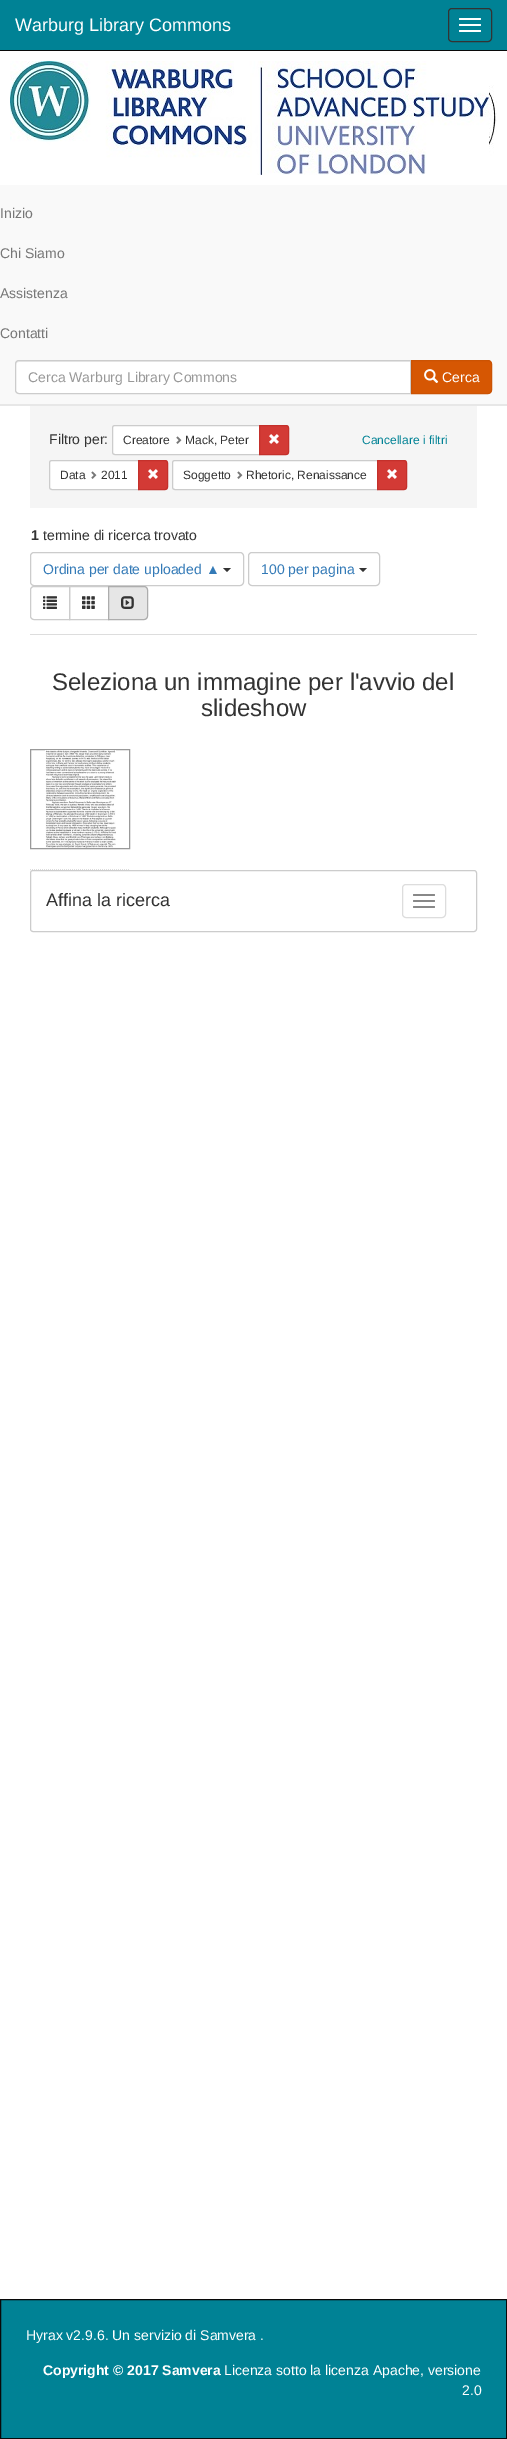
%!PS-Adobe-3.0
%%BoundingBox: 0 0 507 2439
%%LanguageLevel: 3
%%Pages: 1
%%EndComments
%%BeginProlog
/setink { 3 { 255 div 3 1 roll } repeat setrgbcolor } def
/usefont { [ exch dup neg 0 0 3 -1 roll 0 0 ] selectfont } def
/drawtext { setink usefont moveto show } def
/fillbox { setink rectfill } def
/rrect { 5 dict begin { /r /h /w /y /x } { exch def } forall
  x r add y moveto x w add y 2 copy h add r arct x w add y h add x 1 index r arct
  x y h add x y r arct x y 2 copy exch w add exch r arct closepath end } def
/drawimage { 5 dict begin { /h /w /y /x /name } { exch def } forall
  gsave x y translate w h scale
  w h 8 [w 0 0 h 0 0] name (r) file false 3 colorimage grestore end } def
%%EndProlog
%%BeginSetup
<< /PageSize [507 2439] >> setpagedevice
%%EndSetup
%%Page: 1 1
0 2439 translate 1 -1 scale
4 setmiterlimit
0 0 507 2439 255 255 255 fillbox
0 0 507 50 0 130 149 fillbox
0 50 507 1 9 9 9 fillbox
(Warburg Library Commons) 15 31 /LiberationSans-Regular 18 255 255 255 drawtext
51 51 51 setink
448.5 8.5 43 33 3.5 rrect stroke
255 255 255 setink
459 18 22 2 1 rrect fill
459 24 22 2 1 rrect fill
459 30 22 2 1 rrect fill
0 404 507 2 231 231 231 fillbox
(assets/img1.rgb) 10 61 479 114 drawimage
(assets/img2.rgb) 489 61 8 114 drawimage
0 185 507 219 249 249 249 fillbox
(Inizio) 0 218 /LiberationSans-Regular 14 119 119 119 drawtext
(Chi Siamo) 0 258 /LiberationSans-Regular 14 119 119 119 drawtext
(Assistenza) 0 298 /LiberationSans-Regular 14 119 119 119 drawtext
(Contatti) 0 338 /LiberationSans-Regular 14 119 119 119 drawtext
255 255 255 setink
19 360 moveto 411 360 lineto 411 394 lineto 19 394 lineto 17 394 15 392 15 390 curveto 15 364 lineto 15 362 17 360 19 360 curveto closepath fill
236 236 236 setink
19 362 moveto 410 362 lineto 410 361 lineto 19 361 lineto 17 361 16 362 16 364 curveto 16 365 lineto 16 363 17 362 19 362 curveto closepath fill
204 204 204 setink
19 360.5 moveto 410.5 360.5 lineto 410.5 393.5 lineto 19 393.5 lineto 17 393.5 15.5 392 15.5 390 curveto 15.5 364 lineto 15.5 362 17 360.5 19 360.5 curveto closepath stroke
(Cerca Warburg Library Commons) 28 382 /LiberationSans-Regular 14 153 153 153 drawtext
214 87 3 setink
411.5 360.5 moveto 488 360.5 lineto 490 360.5 491.5 362 491.5 364 curveto 491.5 390 lineto 491.5 392 490 393.5 488 393.5 curveto 411.5 393.5 lineto closepath gsave fill grestore
203 83 3 setink
stroke
(assets/img3.rgb) 424 369 15 14 drawimage
(Cerca) 442 382 /LiberationSans-Regular 14 255 255 255 drawtext
30 406 447 102 245 245 245 fillbox
(Filtro per:) 49 444 /LiberationSans-Regular 14 51 51 51 drawtext
255 255 255 setink
115 425.5 moveto 259.5 425.5 lineto 259.5 454.5 lineto 115 454.5 lineto 113.5 454.5 112.5 453.5 112.5 452 curveto 112.5 428 lineto 112.5 426.5 113.5 425.5 115 425.5 curveto closepath gsave fill grestore
204 204 204 setink
stroke
(Creatore) 123 444 /LiberationSans-Regular 12 51 51 51 drawtext
(assets/img4.rgb) 176 436 6 8 drawimage
(Mack, Peter) 185 444 /LiberationSans-Regular 12 51 51 51 drawtext
211 58 53 setink
259.5 425.5 moveto 286 425.5 lineto 287.5 425.5 288.5 426.5 288.5 428 curveto 288.5 452 lineto 288.5 453.5 287.5 454.5 286 454.5 curveto 259.5 454.5 lineto closepath gsave fill grestore
196 48 43 setink
stroke
(assets/img5.rgb) 269 434 10 10 drawimage
(Cancellare i filtri) 362 444 /LiberationSans-Regular 12 0 130 149 drawtext
255 255 255 setink
52 460.5 moveto 138.5 460.5 lineto 138.5 489.5 lineto 52 489.5 lineto 50.5 489.5 49.5 488.5 49.5 487 curveto 49.5 463 lineto 49.5 461.5 50.5 460.5 52 460.5 curveto closepath gsave fill grestore
204 204 204 setink
stroke
(Data) 60 479 /LiberationSans-Regular 12 51 51 51 drawtext
(assets/img4.rgb) 91 471 6 8 drawimage
(2011) 101 479 /LiberationSans-Regular 12 51 51 51 drawtext
211 58 53 setink
138.5 460.5 moveto 165 460.5 lineto 166.5 460.5 167.5 461.5 167.5 463 curveto 167.5 487 lineto 167.5 488.5 166.5 489.5 165 489.5 curveto 138.5 489.5 lineto closepath gsave fill grestore
196 48 43 setink
stroke
(assets/img5.rgb) 148 469 10 10 drawimage
255 255 255 setink
175 460.5 moveto 377.5 460.5 lineto 377.5 489.5 lineto 175 489.5 lineto 173.5 489.5 172.5 488.5 172.5 487 curveto 172.5 463 lineto 172.5 461.5 173.5 460.5 175 460.5 curveto closepath gsave fill grestore
204 204 204 setink
stroke
(Soggetto) 183 479 /LiberationSans-Regular 12 51 51 51 drawtext
(assets/img4.rgb) 237 471 6 8 drawimage
(Rhetoric, Renaissance) 246 479 /LiberationSans-Regular 12 51 51 51 drawtext
211 58 53 setink
377.5 460.5 moveto 404 460.5 lineto 405.5 460.5 406.5 461.5 406.5 463 curveto 406.5 487 lineto 406.5 488.5 405.5 489.5 404 489.5 curveto 377.5 489.5 lineto closepath gsave fill grestore
196 48 43 setink
stroke
(assets/img5.rgb) 387 469 10 10 drawimage
30 634 447 1 221 221 221 fillbox
(1) 31 540 /LiberationSans-Bold 14 51 51 51 drawtext
(termine di ricerca trovato) 43 540 /LiberationSans-Regular 14 51 51 51 drawtext
204 204 204 setink
30.5 552.5 213 33 3.5 rrect stroke
(Ordina per date uploaded ▲) 43 574 /LiberationSans-Regular 14 51 122 183 drawtext
51 51 51 setink
223 568 moveto 231 568 lineto 227 572 lineto closepath fill
204 204 204 setink
248.5 552.5 131 33 3.5 rrect stroke
(100 per pagina) 261 574 /LiberationSans-Regular 14 51 122 183 drawtext
51 51 51 setink
359 568 moveto 367 568 lineto 363 572 lineto closepath fill
204 204 204 setink
34 586.5 moveto 69.5 586.5 lineto 69.5 619.5 lineto 34 619.5 lineto 32 619.5 30.5 618 30.5 616 curveto 30.5 590 lineto 30.5 588 32 586.5 34 586.5 curveto closepath stroke
(assets/img6.rgb) 43 596 14 13 drawimage
69.5 586.5 39 33 rectstroke
(assets/img7.rgb) 82 596 13 13 drawimage
230 230 230 setink
108.5 586.5 moveto 144 586.5 lineto 146 586.5 147.5 588 147.5 590 curveto 147.5 616 lineto 147.5 618 146 619.5 144 619.5 curveto 108.5 619.5 lineto closepath gsave fill grestore
173 173 173 setink
stroke
(assets/img8.rgb) 121 596 13 13 drawimage
(Seleziona un immagine per l'avvio del) 52 690 /LiberationSans-Regular 24 51 51 51 drawtext
(slideshow) 201 716 /LiberationSans-Regular 24 51 51 51 drawtext
221 221 221 setink
[1 1] 0 setdash
30 869.5 moveto 130 869.5 lineto stroke
153 153 153 setink
[] 0 setdash
30.5 749.5 99 99 rectstroke
(assets/img9.rgb) 45 750 71 98 drawimage
204 204 204 setink
30.5 870.5 446 61 2.5 rrect stroke
(Affina la ricerca) 46 906 /LiberationSans-Regular 18 51 51 51 drawtext
221 221 221 setink
402.5 884.5 43 33 3.5 rrect stroke
136 136 136 setink
413 894 22 2 1 rrect fill
413 900 22 2 1 rrect fill
413 906 22 2 1 rrect fill
0 130 149 setink
0.5 2299.5 moveto 506.5 2299.5 lineto 506.5 2438.5 lineto 0.5 2438.5 lineto closepath gsave fill grestore
9 9 9 setink
stroke
(Hyrax v2.9.6. Un servizio di Samvera .) 26 2340 /LiberationSans-Regular 14 255 255 255 drawtext
(Copyright © 2017 Samvera) 43 2375 /LiberationSans-Bold 14 255 255 255 drawtext
(Licenza sotto la licenza Apache, versione) 224 2375 /LiberationSans-Regular 14 255 255 255 drawtext
(2.0) 462 2395 /LiberationSans-Regular 14 255 255 255 drawtext
showpage
%%EOF
